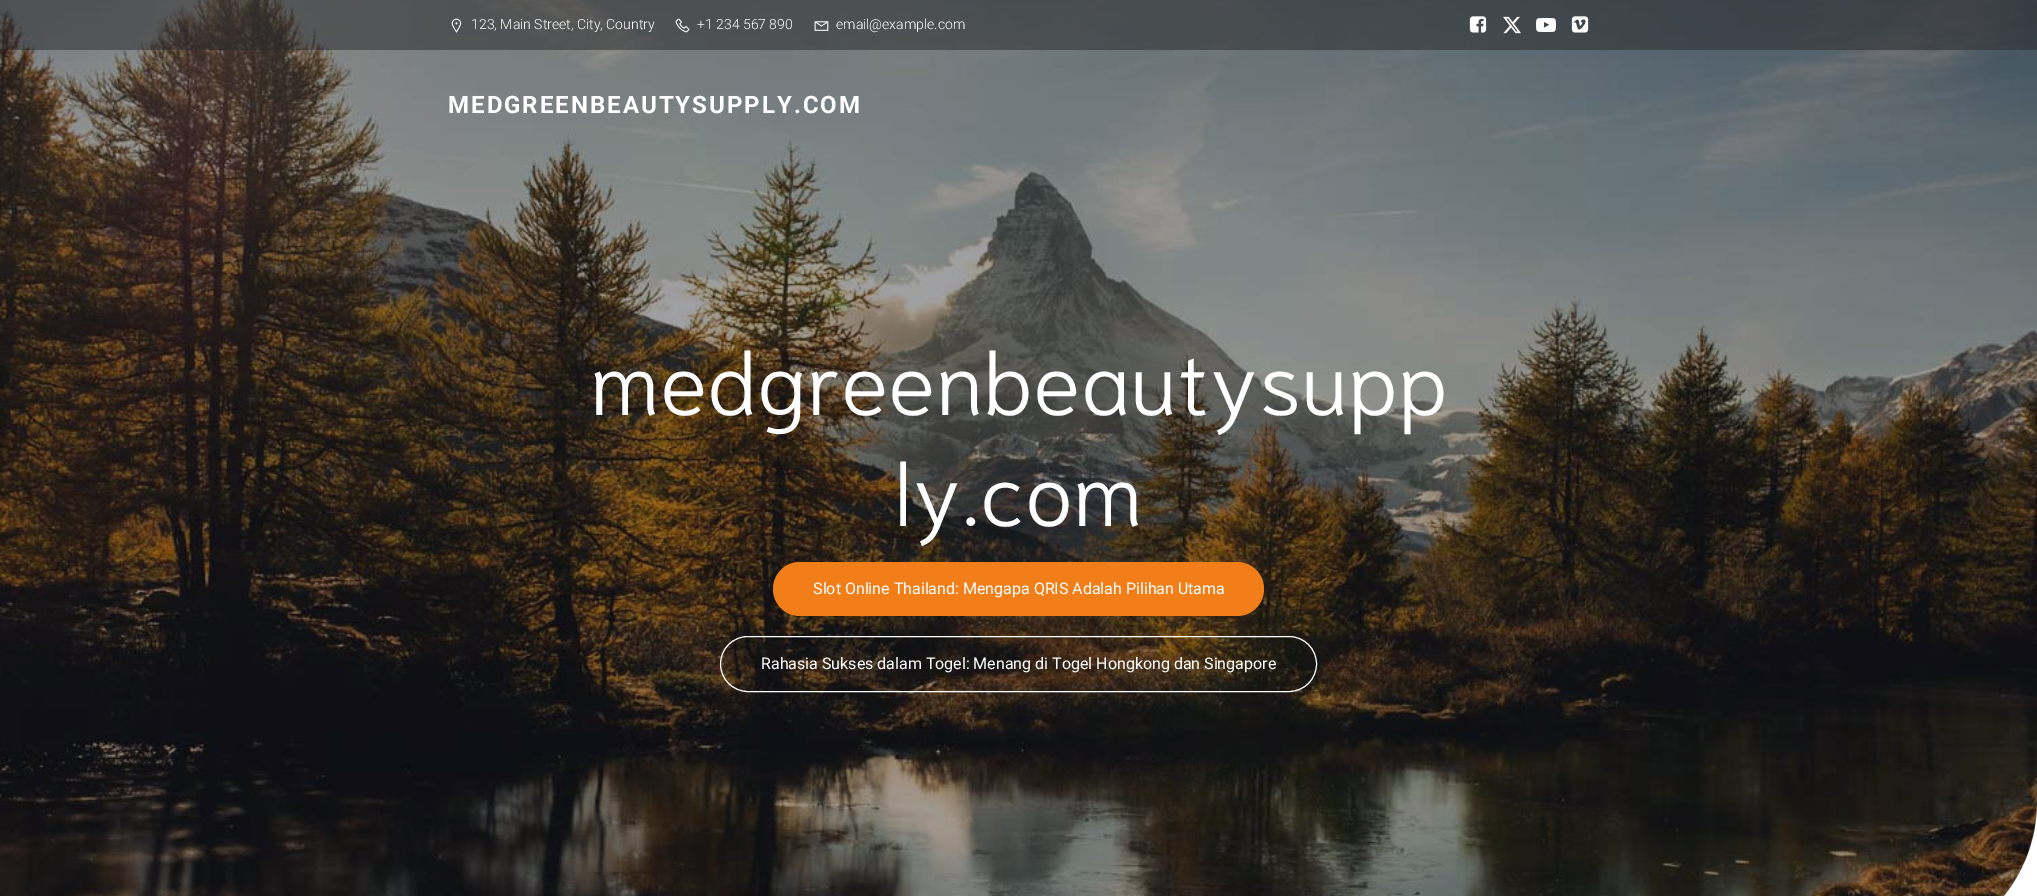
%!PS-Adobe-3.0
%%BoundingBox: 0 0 2037 896
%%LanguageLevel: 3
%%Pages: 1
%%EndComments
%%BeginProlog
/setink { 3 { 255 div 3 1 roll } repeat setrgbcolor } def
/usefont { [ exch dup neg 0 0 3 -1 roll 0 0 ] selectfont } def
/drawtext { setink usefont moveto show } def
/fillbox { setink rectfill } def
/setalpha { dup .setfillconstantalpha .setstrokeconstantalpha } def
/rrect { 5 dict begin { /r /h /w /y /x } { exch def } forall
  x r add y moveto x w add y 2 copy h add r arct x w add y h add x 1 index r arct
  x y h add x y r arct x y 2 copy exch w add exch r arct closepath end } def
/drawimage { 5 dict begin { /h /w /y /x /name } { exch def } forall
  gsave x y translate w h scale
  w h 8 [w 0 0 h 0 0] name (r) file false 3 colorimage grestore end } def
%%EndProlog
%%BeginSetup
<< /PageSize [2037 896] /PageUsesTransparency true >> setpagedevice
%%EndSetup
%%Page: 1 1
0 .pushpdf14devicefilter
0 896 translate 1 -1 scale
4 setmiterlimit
0 0 2037 896 255 255 255 fillbox
(assets/img8.rgb) 0 0 2037 896 drawimage
0.4 setalpha
17 18 25 setink
0 0 moveto 2037 0 lineto 2037 802 lineto 2037 885 1970 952 1887 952 curveto 0 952 lineto closepath fill
0.5 setalpha
0 0 2037 50 39 40 42 fillbox
1 setalpha
(assets/img1.rgb) 451 18 11 15 drawimage
(123, Main Street, City, Country) 471 29 /Roboto-Light 14 255 255 255 drawtext
(assets/img2.rgb) 675 18 15 15 drawimage
(+1 234 567 890) 697 29 /Roboto-Light 14 255 255 255 drawtext
(assets/img3.rgb) 814 21 15 10 drawimage
(email@example.com) 836 29 /Roboto-Light 14 255 255 255 drawtext
(assets/img4.rgb) 1469 16 18 17 drawimage
(assets/img5.rgb) 1503 16 18 18 drawimage
(assets/img6.rgb) 1536 18 20 14 drawimage
(assets/img7.rgb) 1571 16 18 17 drawimage
/Roboto-Bold 24 usefont
448 113 moveto 2 0 (MEDGREENBEAUTYSUPPLY.COM) ashow
(medgreenbeautysupp) 590 415 /Niramit-Light 88 255 255 255 drawtext
(ly.com) 894 526 /Niramit-Light 88 255 255 255 drawtext
241 126 24 setink
773 562 491 54 27 rrect fill
(Slot Online Thailand: Mengapa QRIS Adalah Pilihan Utama) 813 594 /Roboto-Regular 16 255 255 255 drawtext
720.5 636.5 596 55 27.5 rrect stroke
(Rahasia Sukses dalam Togel: Menang di Togel Hongkong dan Singapore) 761 669 /Roboto-Regular 16 255 255 255 drawtext
.poppdf14devicefilter showpage
%%EOF
